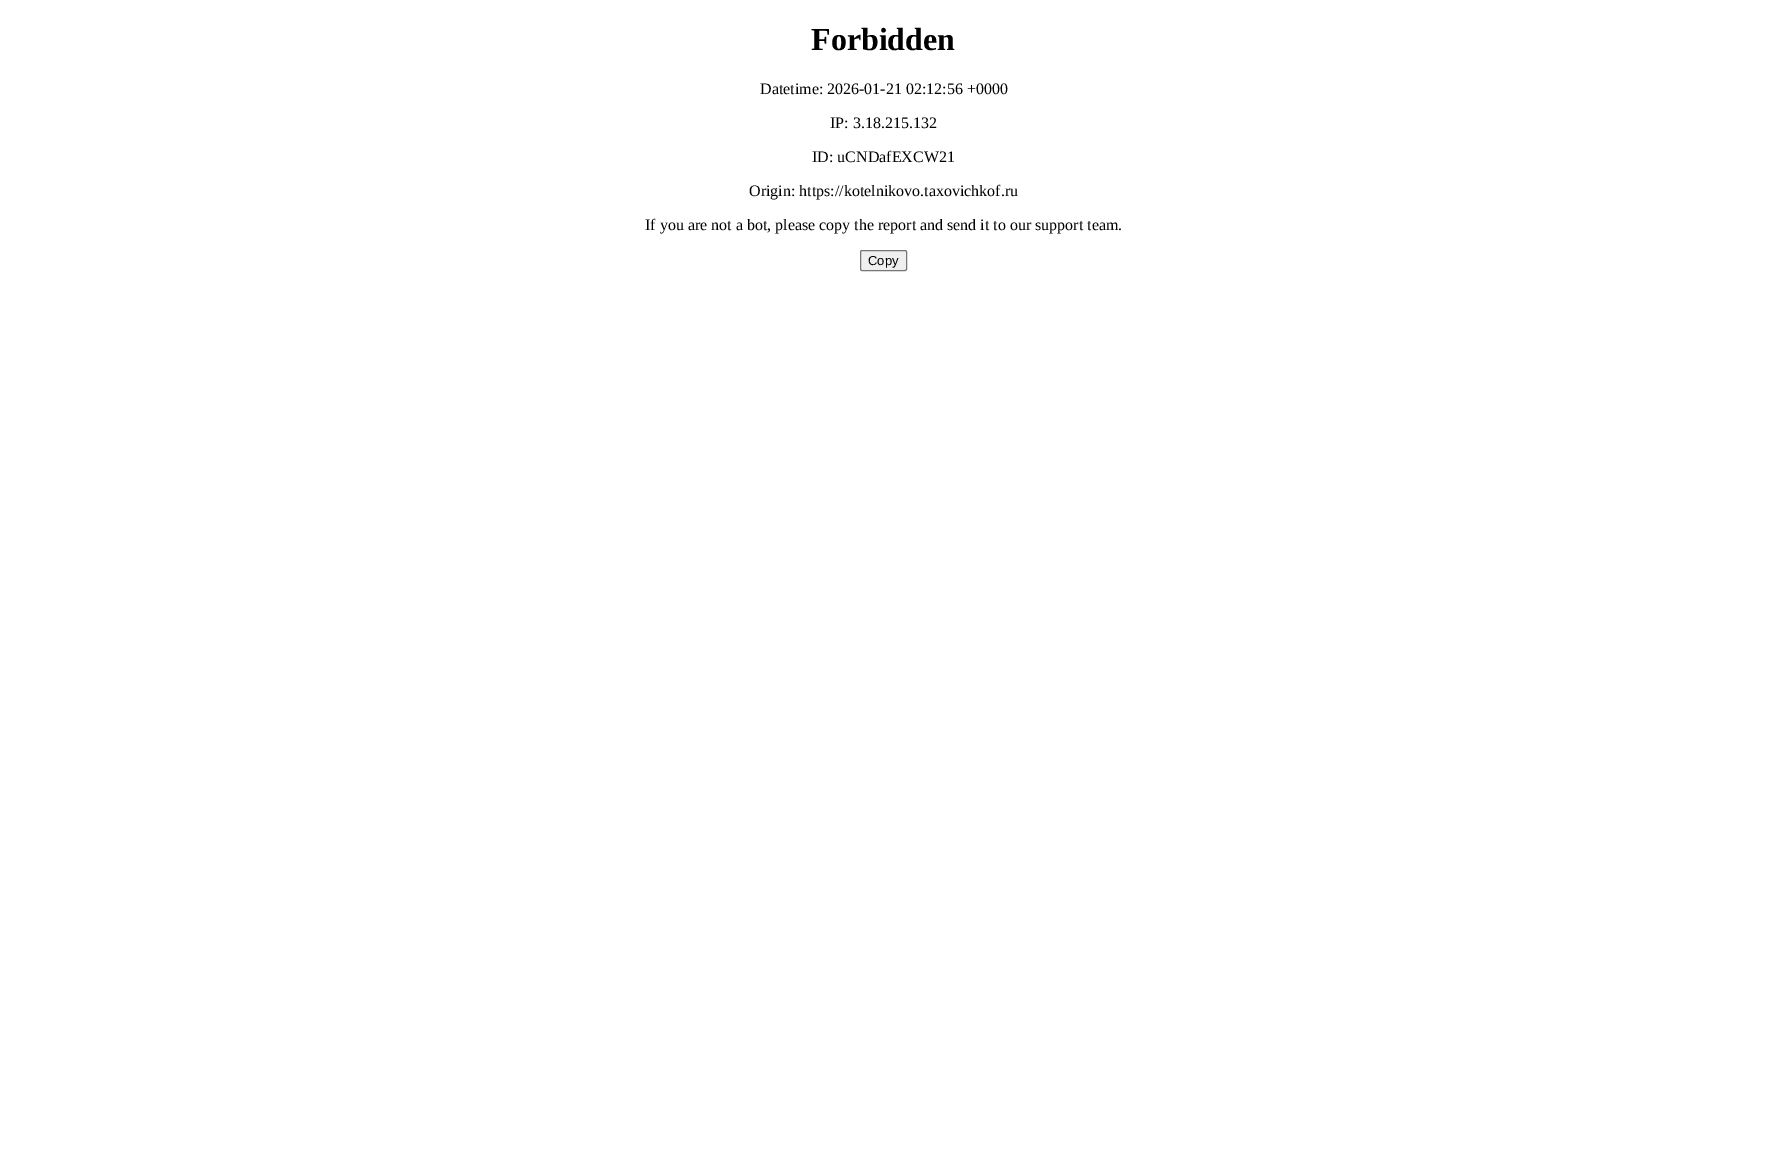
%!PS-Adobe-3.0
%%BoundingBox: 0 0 1767 1152
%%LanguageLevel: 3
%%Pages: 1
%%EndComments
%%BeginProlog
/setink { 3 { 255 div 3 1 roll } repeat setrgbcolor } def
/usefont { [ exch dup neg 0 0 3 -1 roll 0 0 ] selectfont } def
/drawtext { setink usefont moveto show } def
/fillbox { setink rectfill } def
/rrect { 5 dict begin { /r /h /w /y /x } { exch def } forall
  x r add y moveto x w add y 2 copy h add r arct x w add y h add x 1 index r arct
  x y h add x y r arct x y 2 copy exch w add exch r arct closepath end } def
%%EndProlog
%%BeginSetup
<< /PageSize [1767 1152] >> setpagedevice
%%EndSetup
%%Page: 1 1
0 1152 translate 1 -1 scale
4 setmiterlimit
0 0 1767 1152 255 255 255 fillbox
(Forbidden) 811 50 /LiberationSerif-Bold 32 0 0 0 drawtext
(Datetime: 2026-01-21 02:12:56 +0000) 760 94 /LiberationSerif-Regular 16 0 0 0 drawtext
(IP: 3.18.215.132) 830 128 /LiberationSerif-Regular 16 0 0 0 drawtext
(ID: uCNDafEXCW21) 812 162 /LiberationSerif-Regular 16 0 0 0 drawtext
(Origin: https://kotelnikovo.taxovichkof.ru) 749 196 /LiberationSerif-Regular 16 0 0 0 drawtext
(If you are not a bot, please copy the report and send it to our support team.) 645 230 /LiberationSerif-Regular 16 0 0 0 drawtext
239 239 239 setink
860.5 250.5 46 20 1.5 rrect gsave fill grestore
118 118 118 setink
stroke
(Copy) 868 265 /LiberationSans-Regular 13 0 0 0 drawtext
showpage
%%EOF
